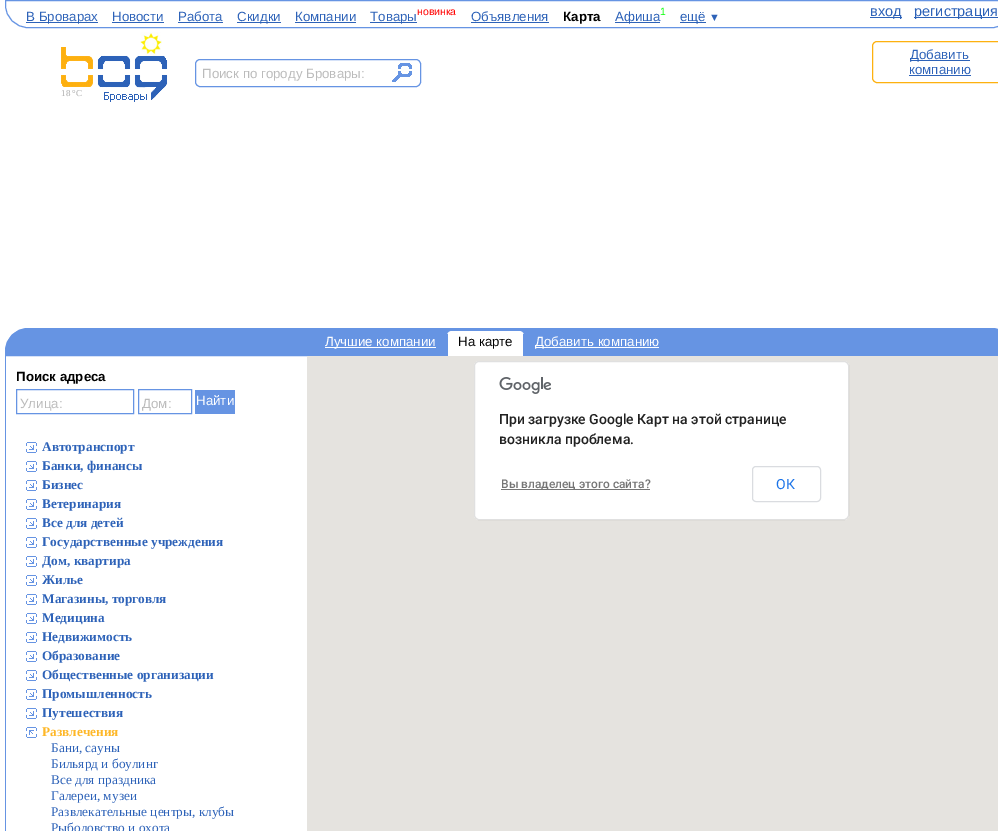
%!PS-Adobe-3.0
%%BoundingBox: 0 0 998 831
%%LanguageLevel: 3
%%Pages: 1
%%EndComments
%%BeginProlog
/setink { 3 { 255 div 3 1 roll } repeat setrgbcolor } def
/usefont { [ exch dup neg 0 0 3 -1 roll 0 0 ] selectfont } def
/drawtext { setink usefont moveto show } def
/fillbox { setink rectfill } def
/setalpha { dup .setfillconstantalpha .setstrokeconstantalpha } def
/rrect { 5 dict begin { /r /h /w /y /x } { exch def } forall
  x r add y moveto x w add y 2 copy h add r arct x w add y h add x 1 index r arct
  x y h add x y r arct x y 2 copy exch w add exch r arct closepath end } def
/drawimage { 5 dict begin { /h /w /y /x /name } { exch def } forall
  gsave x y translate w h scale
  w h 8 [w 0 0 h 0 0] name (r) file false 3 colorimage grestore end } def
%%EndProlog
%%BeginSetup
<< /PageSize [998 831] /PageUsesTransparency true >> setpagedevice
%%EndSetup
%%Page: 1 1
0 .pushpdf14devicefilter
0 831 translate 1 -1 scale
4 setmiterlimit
0 0 998 831 255 255 255 fillbox
102 148 227 setink
5.5 0.5 moveto 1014.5 0.5 lineto 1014.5 5 lineto 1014.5 17.5 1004.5 27.5 992 27.5 curveto 28 27.5 lineto 15.5 27.5 5.5 17.5 5.5 5 curveto closepath stroke
26 22 72 1 45 98 184 fillbox
(В Броварах) 26 21 /LiberationSans-Regular 13.3 45 98 184 drawtext
(Новости) 112 21 /LiberationSans-Regular 13.3 45 98 184 drawtext
112 22 52 1 45 98 184 fillbox
(Работа) 178 21 /LiberationSans-Regular 13.3 45 98 184 drawtext
178 22 45 1 45 98 184 fillbox
237 22 44 1 45 98 184 fillbox
(Скидки) 237 21 /LiberationSans-Regular 13.3 45 98 184 drawtext
(Компании) 295 21 /LiberationSans-Regular 13.3 45 98 184 drawtext
295 22 61 1 45 98 184 fillbox
370 22 47 1 45 98 184 fillbox
(Товары) 370 21 /LiberationSans-Regular 13.3 45 98 184 drawtext
(новинка) 417 15 /LiberationSans-Regular 10.5 255 0 0 drawtext
(Объявления) 471 21 /LiberationSans-Regular 13.3 45 98 184 drawtext
471 22 78 1 45 98 184 fillbox
(Карта) 563 21 /LiberationSans-Bold 13.3 0 0 0 drawtext
615 22 45 1 45 98 184 fillbox
(Афиша) 615 21 /LiberationSans-Regular 13.3 45 98 184 drawtext
(1) 660 15 /LiberationSans-Regular 10.5 0 255 0 drawtext
680 22 26 1 45 98 184 fillbox
(ещё) 680 21 /LiberationSans-Regular 13.3 45 98 184 drawtext
(▼) 709 21 /LiberationSans-Regular 11 45 98 184 drawtext
870 17 32 1 45 98 184 fillbox
(вход) 870 16 /LiberationSans-Regular 14.5 45 98 184 drawtext
914 17 84 1 45 98 184 fillbox
(регистрация) 914 16 /LiberationSans-Regular 14.5 45 98 184 drawtext
(assets/img1.rgb) 140 32 22 24 drawimage
(assets/img2.rgb) 61 47 107 55 drawimage
102 148 227 setink
195.5 59.5 225 27 4.5 rrect stroke
(Поиск по городу Бровары:) 202 78 /LiberationSans-Regular 13.3 187 187 187 drawtext
(assets/img3.rgb) 392 63 20 19 drawimage
253 177 16 setink
872.5 41.5 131 41 4.5 rrect stroke
910 60 60 1 45 98 184 fillbox
(Добавить) 910 59 /LiberationSans-Regular 13.3 45 98 184 drawtext
(компанию) 909 74 /LiberationSans-Regular 13.3 45 98 184 drawtext
909 75 62 1 45 98 184 fillbox
(18 °C) 61 96 /LiberationSerif-Regular 9 170 170 170 drawtext
102 148 227 setink
28 328.5 moveto 992 328.5 lineto 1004.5 328.5 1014.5 338.5 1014.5 351 curveto 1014.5 355.5 lineto 5.5 355.5 lineto 5.5 351 lineto 5.5 338.5 15.5 328.5 28 328.5 curveto closepath gsave fill grestore
stroke
325 347 111 1 255 255 255 fillbox
(Лучшие компании) 325 346 /LiberationSans-Regular 13.3 255 255 255 drawtext
452 331 moveto 519 331 lineto 522 331 524 333 524 336 curveto 524 362 lineto 447 362 lineto 447 336 lineto 447 333 449 331 452 331 curveto closepath fill
523 334 1 28 102 148 227 fillbox
447 334 1 28 102 148 227 fillbox
(На карте) 458 346 /LiberationSans-Regular 13.3 0 0 0 drawtext
535 347 124 1 255 255 255 fillbox
(Добавить компанию) 535 346 /LiberationSans-Regular 13.3 255 255 255 drawtext
5 356 1 475 102 148 227 fillbox
(Поиск адреса) 16 381 /LiberationSans-Bold 13.3 0 0 0 drawtext
102 148 227 setink
16.5 389.5 117 24 rectstroke
(Улица:) 20 408 /LiberationSans-Regular 13.3 187 187 187 drawtext
102 148 227 setink
138.5 389.5 53 24 rectstroke
gsave
142 396 49 15 rectclip
(Дом:) 142 408 /LiberationSans-Regular 13.3 187 187 187 drawtext
grestore
195 390 40 24 102 148 227 fillbox
(Найти) 196 405 /LiberationSans-Regular 13.3 255 255 255 drawtext
(assets/img4.rgb) 26 442 11 11 drawimage
(Автотранспорт) 42 451 /LiberationSerif-Bold 13.3 45 98 184 drawtext
(assets/img4.rgb) 26 461 11 11 drawimage
(Банки, финансы) 42 470 /LiberationSerif-Bold 13.3 45 98 184 drawtext
(assets/img4.rgb) 26 480 11 11 drawimage
(Бизнес) 42 489 /LiberationSerif-Bold 13.3 45 98 184 drawtext
(assets/img4.rgb) 26 499 11 11 drawimage
(Ветеринария) 42 508 /LiberationSerif-Bold 13.3 45 98 184 drawtext
(assets/img4.rgb) 26 518 11 11 drawimage
(Все для детей) 42 527 /LiberationSerif-Bold 13.3 45 98 184 drawtext
(assets/img4.rgb) 26 537 11 11 drawimage
(Государственные учреждения) 42 546 /LiberationSerif-Bold 13.3 45 98 184 drawtext
(assets/img4.rgb) 26 556 11 11 drawimage
(Дом, квартира) 42 565 /LiberationSerif-Bold 13.3 45 98 184 drawtext
(assets/img4.rgb) 26 575 11 11 drawimage
(Жилье) 42 584 /LiberationSerif-Bold 13.3 45 98 184 drawtext
(assets/img4.rgb) 26 594 11 11 drawimage
(Магазины, торговля) 42 603 /LiberationSerif-Bold 13.3 45 98 184 drawtext
(assets/img4.rgb) 26 613 11 11 drawimage
(Медицина) 42 622 /LiberationSerif-Bold 13.3 45 98 184 drawtext
(assets/img4.rgb) 26 632 11 11 drawimage
(Недвижимость) 42 641 /LiberationSerif-Bold 13.3 45 98 184 drawtext
(assets/img4.rgb) 26 651 11 11 drawimage
(Образование) 42 660 /LiberationSerif-Bold 13.3 45 98 184 drawtext
(assets/img4.rgb) 26 670 11 11 drawimage
(Общественные организации) 42 679 /LiberationSerif-Bold 13.3 45 98 184 drawtext
(assets/img4.rgb) 26 689 11 11 drawimage
(Промышленность) 42 698 /LiberationSerif-Bold 13.3 45 98 184 drawtext
(assets/img4.rgb) 26 708 11 11 drawimage
(Путешествия) 42 717 /LiberationSerif-Bold 13.3 45 98 184 drawtext
(assets/img5.rgb) 26 727 11 11 drawimage
(Развлечения) 42 736 /LiberationSerif-Bold 13.3 254 183 39 drawtext
(Бани, сауны) 51 752 /LiberationSerif-Regular 13.3 45 98 184 drawtext
(Бильярд и боулинг) 51 768 /LiberationSerif-Regular 13.3 45 98 184 drawtext
(Все для праздника) 51 784 /LiberationSerif-Regular 13.3 45 98 184 drawtext
(Галереи, музеи) 51 800 /LiberationSerif-Regular 13.3 45 98 184 drawtext
(Развлекательные центры, клубы) 51 816 /LiberationSerif-Regular 13.3 45 98 184 drawtext
(Рыболовство и охота) 51 832 /LiberationSerif-Regular 13.3 45 98 184 drawtext
307 356 691 475 229 227 223 fillbox
255 255 255 setink
474 361 375 159 5 rrect fill
0.12 setalpha
0 0 0 setink
474.5 361.5 374 158 4.5 rrect stroke
1 setalpha
(assets/img6.rgb) 499 377 52 17 drawimage
(При загрузке Google Карт на этой странице) 499 424 /Roboto-Medium 14 33 33 33 drawtext
(возникла проблема.) 499 444 /Roboto-Medium 14 33 33 33 drawtext
501 489 149 1 117 117 117 fillbox
(Вы владелец этого сайта?) 501 488 /Roboto-Medium 12 117 117 117 drawtext
218 220 224 setink
752.5 466.5 68 35 3.5 rrect stroke
(ОК) 776 489 /Roboto-Regular 14 26 115 232 drawtext
.poppdf14devicefilter showpage
%%EOF
